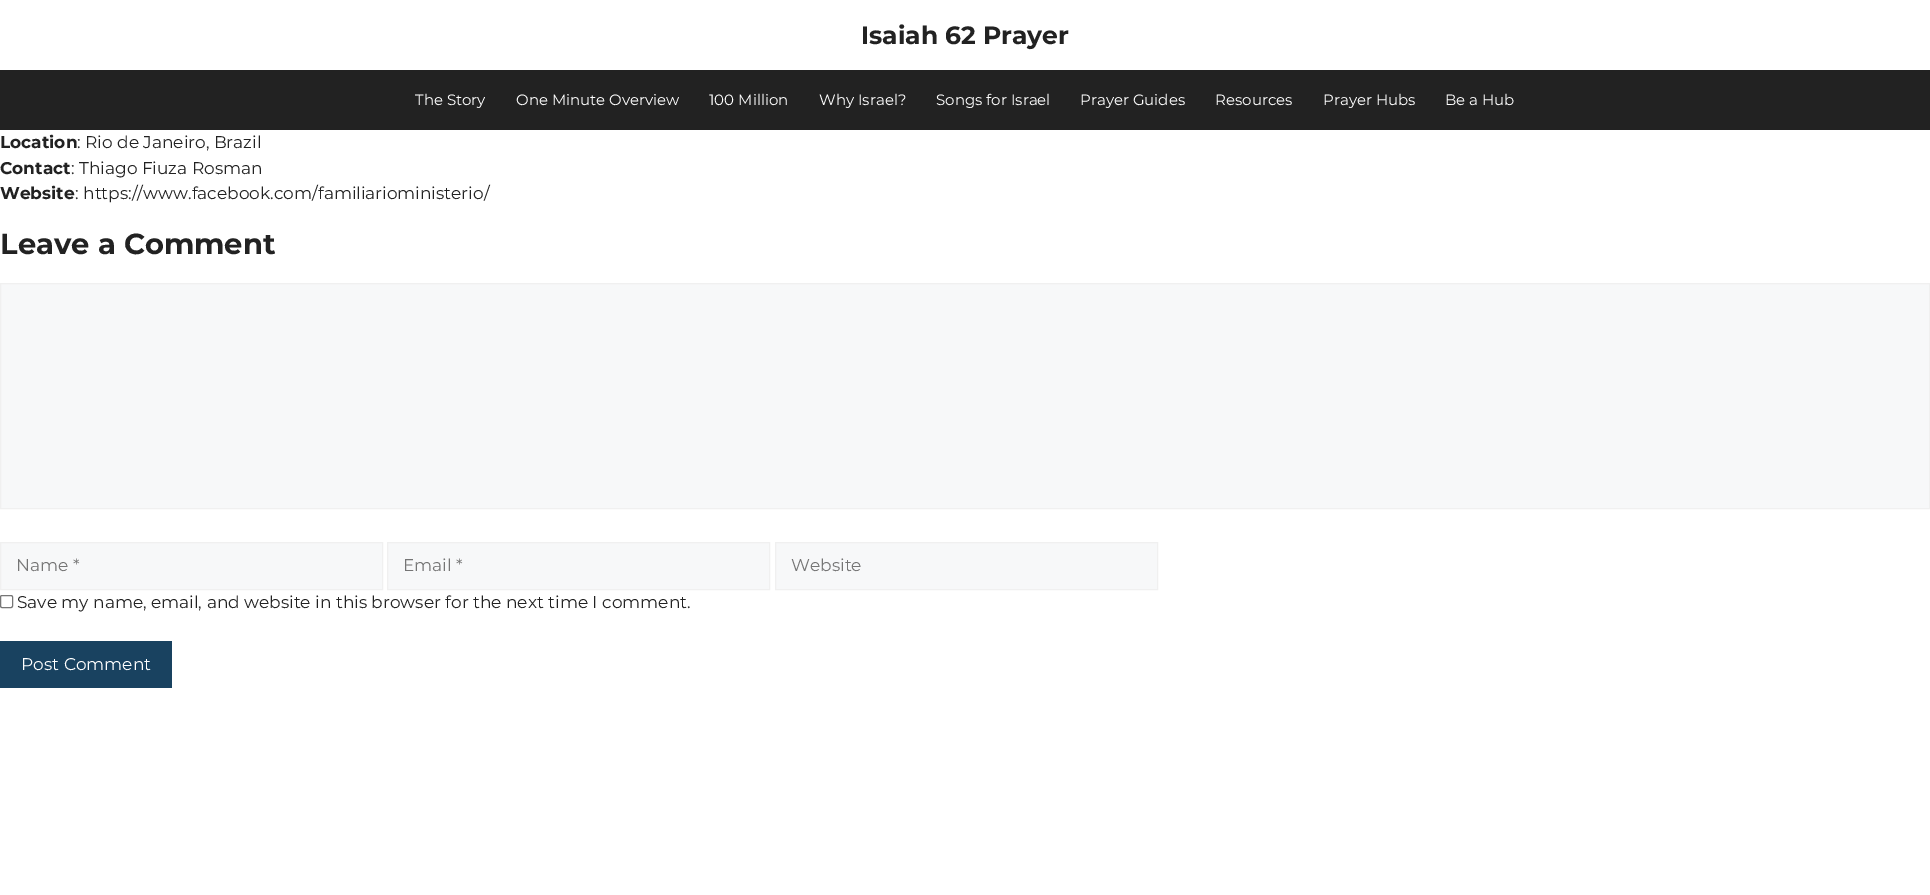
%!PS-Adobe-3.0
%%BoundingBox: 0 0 1930 895
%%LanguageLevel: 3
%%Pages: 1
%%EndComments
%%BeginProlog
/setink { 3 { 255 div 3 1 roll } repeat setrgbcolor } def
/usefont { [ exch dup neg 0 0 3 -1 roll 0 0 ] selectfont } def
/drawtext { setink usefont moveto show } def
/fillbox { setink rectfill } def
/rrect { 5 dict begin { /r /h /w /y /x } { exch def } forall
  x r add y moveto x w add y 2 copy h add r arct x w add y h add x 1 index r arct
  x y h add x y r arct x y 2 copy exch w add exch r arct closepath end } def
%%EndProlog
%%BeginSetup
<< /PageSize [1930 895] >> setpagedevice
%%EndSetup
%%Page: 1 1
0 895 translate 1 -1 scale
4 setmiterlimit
0 0 1930 895 255 255 255 fillbox
(Isaiah 62 Prayer) 861 44 /Montserrat-Bold 25 34 34 34 drawtext
0 70 1930 60 34 34 34 fillbox
(The Story) 415 105 /Montserrat-Regular 15 255 255 255 drawtext
(One Minute Overview) 516 105 /Montserrat-Regular 15 255 255 255 drawtext
(100 Million) 709 105 /Montserrat-Regular 15 255 255 255 drawtext
(Why Israel?) 819 105 /Montserrat-Regular 15 255 255 255 drawtext
(Songs for Israel) 936 105 /Montserrat-Regular 15 255 255 255 drawtext
(Prayer Guides) 1080 105 /Montserrat-Regular 15 255 255 255 drawtext
(Resources) 1215 105 /Montserrat-Regular 15 255 255 255 drawtext
(Prayer Hubs) 1323 105 /Montserrat-Regular 15 255 255 255 drawtext
(Be a Hub) 1445 105 /Montserrat-Regular 15 255 255 255 drawtext
(Location) 0 148 /Montserrat-Bold 17 34 34 34 drawtext
(: Rio de Janeiro, Brazil) 77 148 /Montserrat-Regular 17 34 34 34 drawtext
(Contact) 0 174 /Montserrat-Bold 17 34 34 34 drawtext
(: Thiago Fiuza Rosman) 71 174 /Montserrat-Regular 17 34 34 34 drawtext
(Website) 0 199 /Montserrat-Bold 17 34 34 34 drawtext
(: https://www.facebook.com/familiarioministerio/) 75 199 /Montserrat-Regular 17 34 34 34 drawtext
(Leave a Comment) 0 254 /Montserrat-Bold 29 34 34 34 drawtext
247 248 249 setink
0.5 283.5 moveto 1929.5 283.5 lineto 1929.5 508.5 lineto 0.5 508.5 lineto closepath gsave fill grestore
240 240 240 setink
stroke
247 248 249 setink
0.5 542.5 moveto 382.5 542.5 lineto 382.5 589.5 lineto 0.5 589.5 lineto closepath gsave fill grestore
240 240 240 setink
stroke
(Name *) 16 571 /Montserrat-Regular 17 117 117 117 drawtext
247 248 249 setink
387.5 542.5 moveto 769.5 542.5 lineto 769.5 589.5 lineto 387.5 589.5 lineto closepath gsave fill grestore
240 240 240 setink
stroke
(Email *) 403 571 /Montserrat-Regular 17 117 117 117 drawtext
247 248 249 setink
775.5 542.5 moveto 1157.5 542.5 lineto 1157.5 589.5 lineto 775.5 589.5 lineto closepath gsave fill grestore
240 240 240 setink
stroke
(Website) 791 571 /Montserrat-Regular 17 117 117 117 drawtext
118 118 118 setink
0.5 595.5 12 12 1.5 rrect stroke
(Save my name, email, and website in this browser for the next time I comment.) 17 608 /Montserrat-Regular 17 34 34 34 drawtext
0 641 172 47 25 66 96 fillbox
(Post Comment) 21 670 /Montserrat-Regular 17 255 255 255 drawtext
showpage
%%EOF
